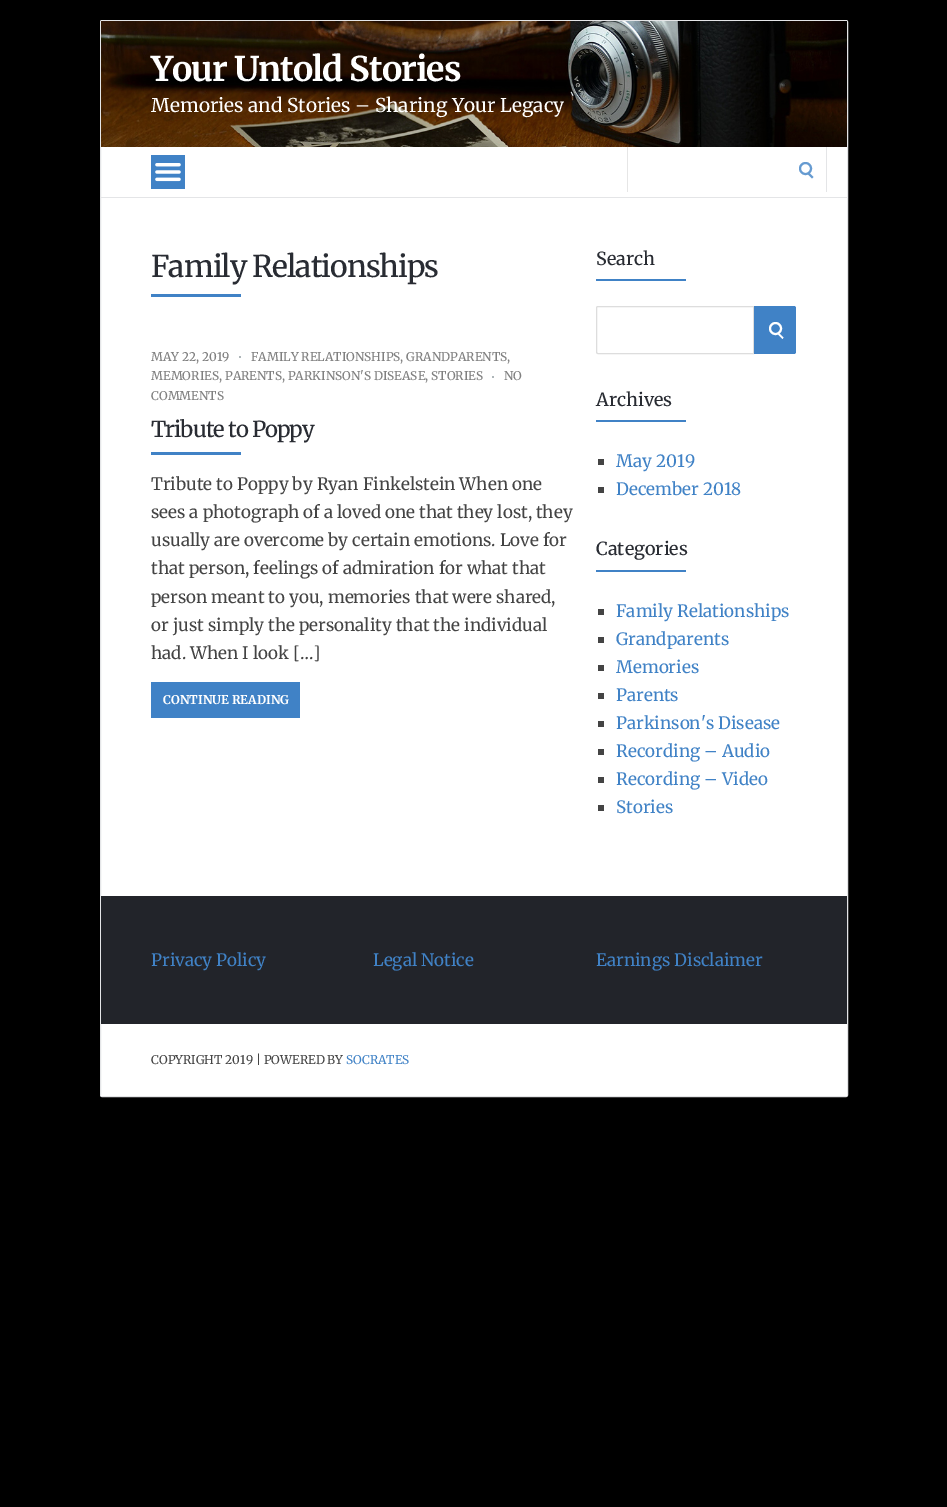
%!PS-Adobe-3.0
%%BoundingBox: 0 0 947 1507
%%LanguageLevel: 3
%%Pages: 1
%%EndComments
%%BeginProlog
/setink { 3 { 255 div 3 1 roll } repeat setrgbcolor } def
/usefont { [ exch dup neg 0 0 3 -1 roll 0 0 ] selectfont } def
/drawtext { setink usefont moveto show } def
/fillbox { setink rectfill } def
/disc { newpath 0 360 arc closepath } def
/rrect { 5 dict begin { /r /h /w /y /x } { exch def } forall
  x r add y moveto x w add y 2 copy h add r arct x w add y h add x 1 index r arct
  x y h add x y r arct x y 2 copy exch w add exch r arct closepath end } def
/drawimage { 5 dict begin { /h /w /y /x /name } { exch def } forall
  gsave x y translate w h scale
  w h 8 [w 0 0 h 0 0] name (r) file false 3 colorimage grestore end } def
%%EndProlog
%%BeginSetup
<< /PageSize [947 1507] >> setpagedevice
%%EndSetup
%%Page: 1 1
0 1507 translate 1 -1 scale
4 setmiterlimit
0 0 947 1507 0 0 0 fillbox
255 255 255 setink
100.5 20.5 747 1076 1.5 rrect gsave fill grestore
228 229 231 setink
stroke
(assets/img1.rgb) 101 21 746 126 drawimage
/Merriweather-Bold 34 usefont
255 255 255 setink
151 81 moveto -1 0 (Your Untold Stories) ashow
(Memories and Stories – Sharing Your Legacy) 151 112 /Merriweather-Regular 19 255 255 255 drawtext
101 197 746 1 228 229 231 fillbox
(assets/img2.rgb) 151 155 34 34 drawimage
826 147 1 45 228 229 231 fillbox
627 147 1 45 230 230 230 fillbox
102 155 209 setink
2 setlinewidth
805.5 168.5 5.5 disc stroke
807.5 174 moveto 809 172.5 lineto 813.5 177 lineto 812 178.5 lineto closepath fill
/Merriweather-Medium 30 usefont
41 44 51 setink
151 277 moveto -1 0 (Family Relationships) ashow
151 294 90 3 64 130 198 fillbox
(MAY 22, 2019) 151 361 /Merriweather-Medium 12 128 128 128 drawtext
239 356 2 2 174 182 185 fillbox
(FAMILY RELATIONSHIPS, GRANDPARENTS,) 251 361 /Merriweather-Medium 12 128 128 128 drawtext
(MEMORIES, PARENTS, PARKINSON'S DISEASE, STORIES) 151 380 /Merriweather-Medium 12 128 128 128 drawtext
492 376 2 2 174 182 185 fillbox
(NO) 504 380 /Merriweather-Medium 12 128 128 128 drawtext
(COMMENTS) 151 400 /Merriweather-Medium 12 128 128 128 drawtext
/Merriweather-Medium 22 usefont
41 44 51 setink
151 437 moveto -1 0 (Tribute to Poppy) ashow
151 452 90 3 64 130 198 fillbox
(Tribute to Poppy by Ryan Finkelstein When one) 151 490 /Merriweather-Regular 17 68 68 68 drawtext
(sees a photograph of a loved one that they lost, they) 151 518 /Merriweather-Regular 17 68 68 68 drawtext
(usually are overcome by certain emotions. Love for) 151 546 /Merriweather-Regular 17 68 68 68 drawtext
(that person, feelings of admiration for what that) 151 574 /Merriweather-Regular 17 68 68 68 drawtext
(person meant to you, memories that were shared,) 151 603 /Merriweather-Regular 17 68 68 68 drawtext
(or just simply the personality that the individual) 151 631 /Merriweather-Regular 17 68 68 68 drawtext
(had. When I look […]) 151 659 /Merriweather-Regular 17 68 68 68 drawtext
151 682 149 36 64 130 198 fillbox
(CONTINUE READING) 163 704 /Merriweather-Bold 12 255 255 255 drawtext
(Search) 596 265 /Merriweather-Medium 18 41 44 51 drawtext
596 279 90 2 64 130 198 fillbox
221 221 221 setink
1 setlinewidth
598 306.5 moveto 753.5 306.5 lineto 753.5 353.5 lineto 598 353.5 lineto 597 353.5 596.5 353 596.5 352 curveto 596.5 308 lineto 596.5 307 597 306.5 598 306.5 curveto closepath stroke
64 130 198 setink
754 306 moveto 794 306 lineto 795 306 796 307 796 308 curveto 796 352 lineto 796 353 795 354 794 354 curveto 754 354 lineto closepath fill
255 255 255 setink
2 setlinewidth
775.5 328.5 5.5 disc stroke
778 334.5 moveto 779.5 333.5 lineto 783.5 337.5 lineto 782.5 339 lineto closepath fill
(Archives) 596 406 /Merriweather-Medium 18 41 44 51 drawtext
596 420 90 2 64 130 198 fillbox
598 459 6 6 68 68 68 fillbox
(May 2019) 616 467 /Merriweather-Regular 17 64 130 198 drawtext
598 487 6 6 68 68 68 fillbox
(December 2018) 616 495 /Merriweather-Regular 17 64 130 198 drawtext
(Categories) 596 555 /Merriweather-Medium 18 41 44 51 drawtext
596 570 90 2 64 130 198 fillbox
598 609 6 6 68 68 68 fillbox
(Family Relationships) 616 617 /Merriweather-Regular 17 64 130 198 drawtext
598 637 6 6 68 68 68 fillbox
(Grandparents) 616 645 /Merriweather-Regular 17 64 130 198 drawtext
598 665 6 6 68 68 68 fillbox
(Memories) 616 673 /Merriweather-Regular 17 64 130 198 drawtext
598 693 6 6 68 68 68 fillbox
(Parents) 616 701 /Merriweather-Regular 17 64 130 198 drawtext
598 721 6 6 68 68 68 fillbox
(Parkinson's Disease) 616 729 /Merriweather-Regular 17 64 130 198 drawtext
598 749 6 6 68 68 68 fillbox
(Recording – Audio) 616 757 /Merriweather-Regular 17 64 130 198 drawtext
598 777 6 6 68 68 68 fillbox
(Recording – Video) 616 785 /Merriweather-Regular 17 64 130 198 drawtext
598 805 6 6 68 68 68 fillbox
(Stories) 616 813 /Merriweather-Regular 17 64 130 198 drawtext
101 896 746 128 34 36 42 fillbox
(Privacy Policy) 151 966 /Merriweather-Regular 17 64 130 198 drawtext
(Legal Notice) 373 966 /Merriweather-Regular 17 64 130 198 drawtext
(Earnings Disclaimer) 596 966 /Merriweather-Regular 17 64 130 198 drawtext
101 1095 746 1 255 255 255 fillbox
(COPYRIGHT 2019 | POWERED BY) 151 1064 /Merriweather-Regular 12 68 68 68 drawtext
(SOCRATES) 346 1064 /Merriweather-Regular 12 64 130 198 drawtext
showpage
%%EOF
